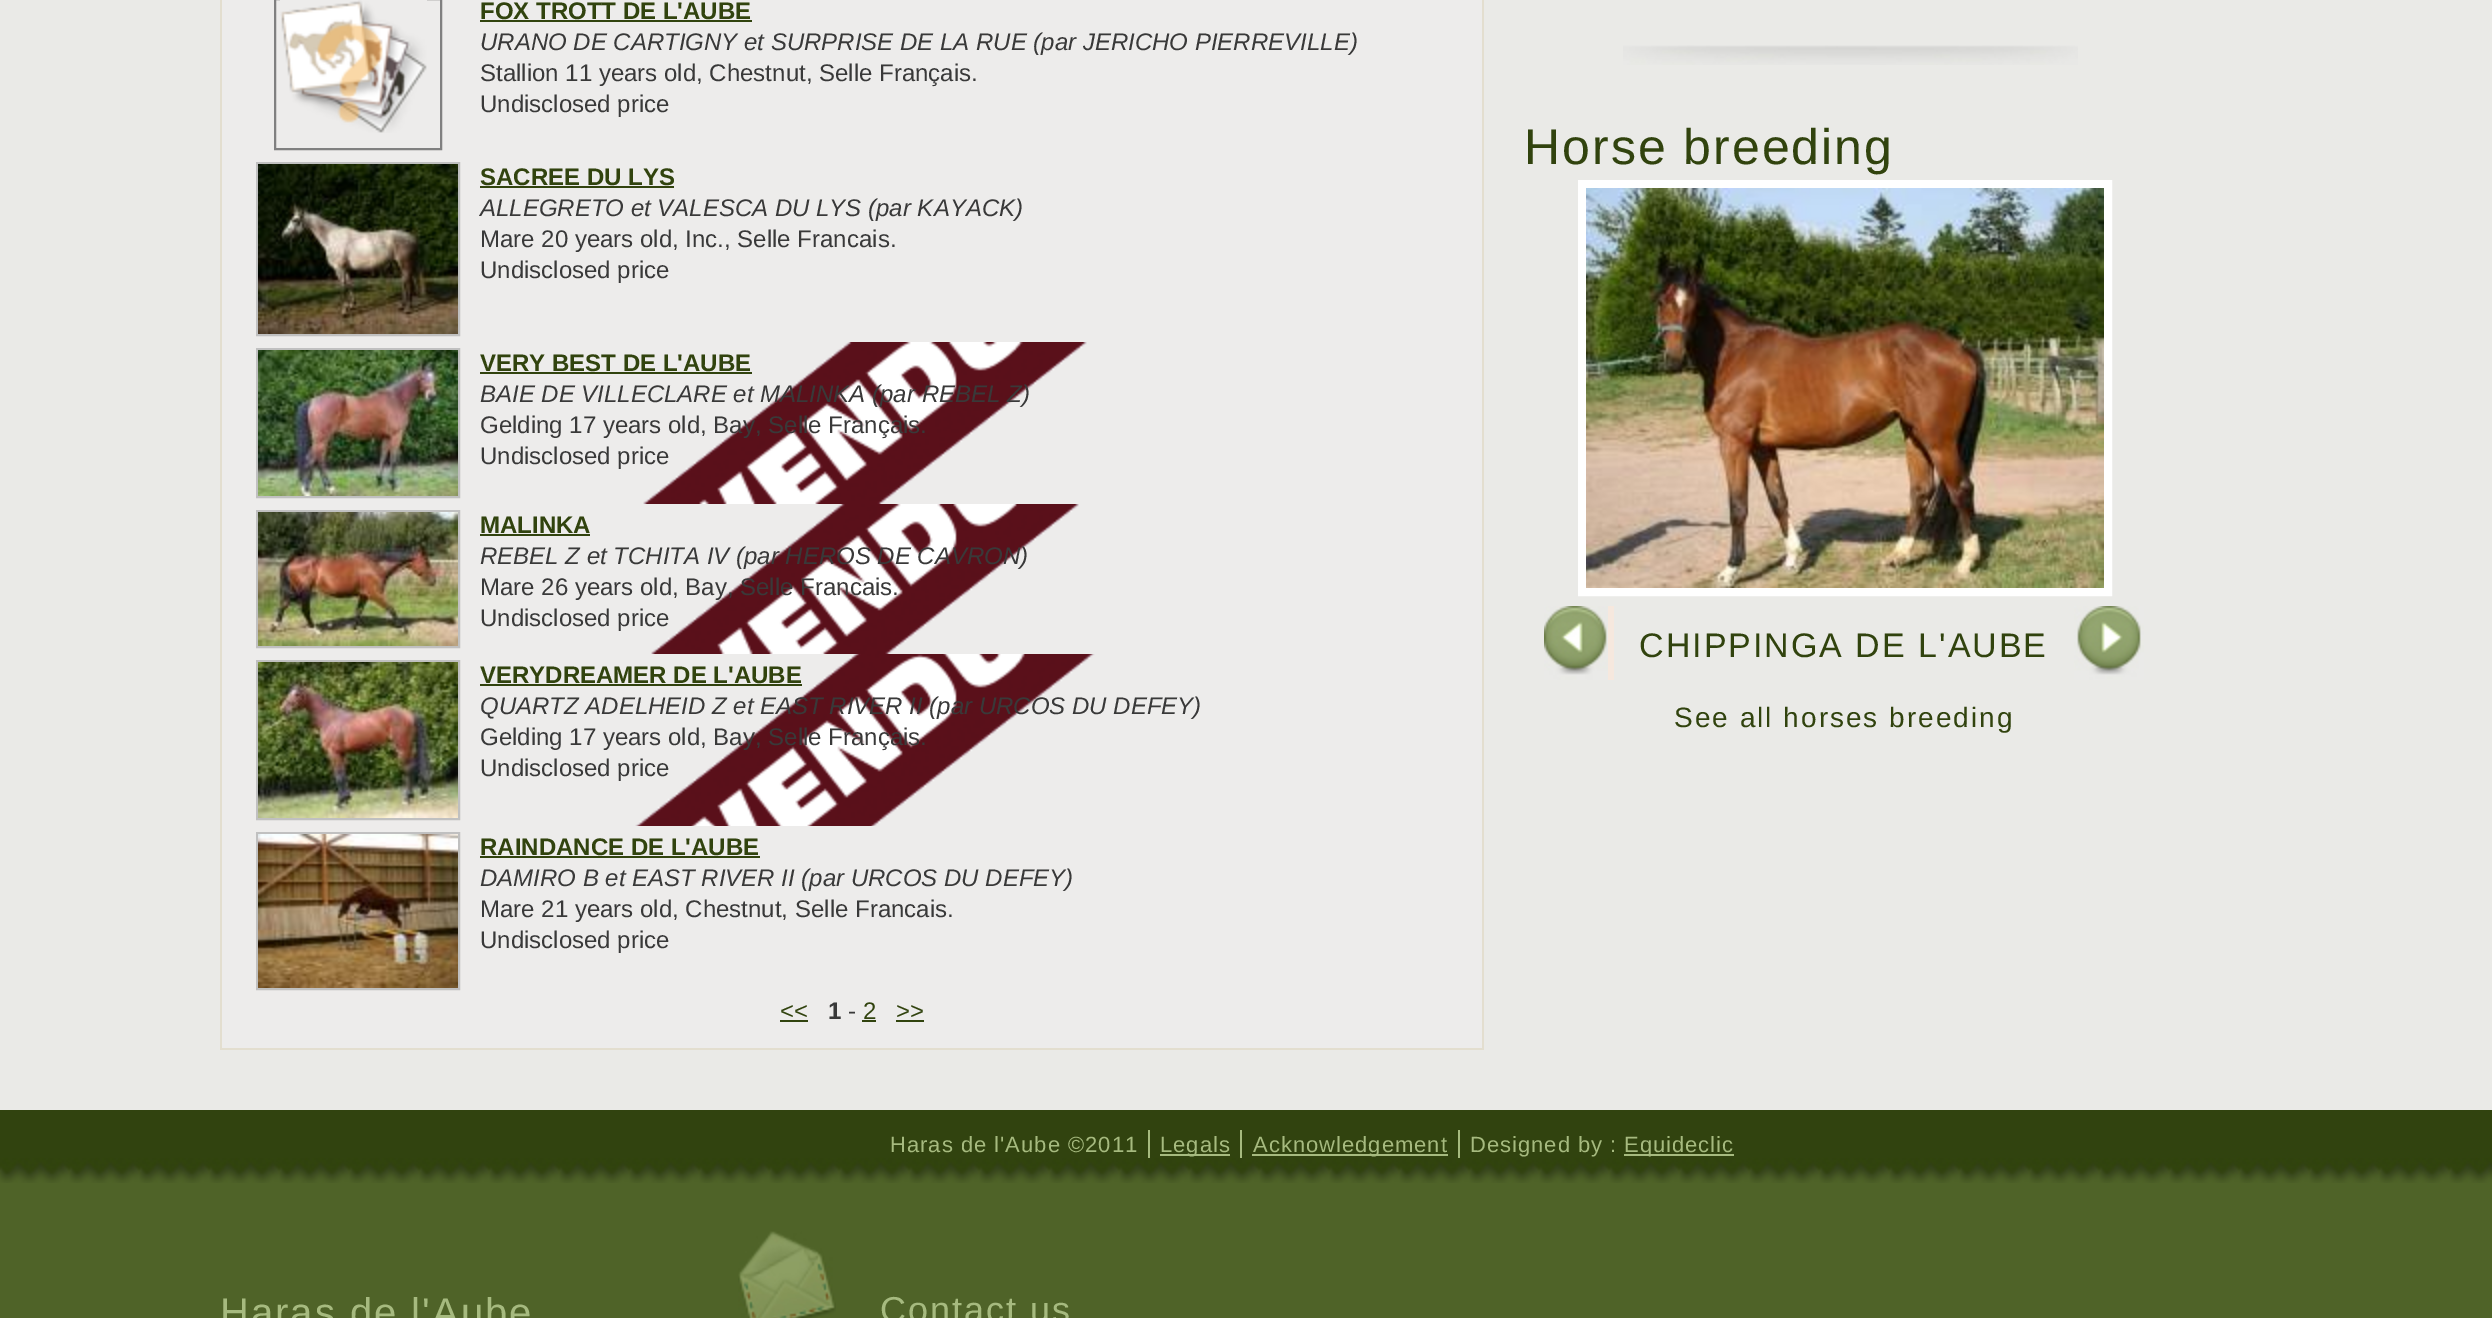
%!PS-Adobe-3.0
%%BoundingBox: 0 0 2492 1318
%%LanguageLevel: 3
%%Pages: 1
%%EndComments
%%BeginProlog
/setink { 3 { 255 div 3 1 roll } repeat setrgbcolor } def
/usefont { [ exch dup neg 0 0 3 -1 roll 0 0 ] selectfont } def
/drawtext { setink usefont moveto show } def
/fillbox { setink rectfill } def
/drawimage { 5 dict begin { /h /w /y /x /name } { exch def } forall
  gsave x y translate w h scale
  w h 8 [w 0 0 h 0 0] name (r) file false 3 colorimage grestore end } def
%%EndProlog
%%BeginSetup
<< /PageSize [2492 1318] >> setpagedevice
%%EndSetup
%%Page: 1 1
0 1318 translate 1 -1 scale
4 setmiterlimit
0 0 2492 1318 234 234 231 fillbox
222 0 1260 1048 237 236 235 fillbox
1482 0 2 1050 227 222 207 fillbox
220 1048 1264 2 227 222 207 fillbox
220 0 2 1050 227 222 207 fillbox
128 128 128 setink
2 setlinewidth
275 -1 166 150 rectstroke
(assets/img1.rgb) 280 0 147 133 drawimage
(FOX TROTT DE L'AUBE) 480 19 /LiberationSans-Bold 24 49 67 14 drawtext
480 20 272 2 49 67 14 fillbox
(URANO DE CARTIGNY et SURPRISE DE LA RUE \(par JERICHO PIERREVILLE\)) 480 50 /LiberationSans-Italic 24 57 57 57 drawtext
(Stallion 11 years old, Chestnut, Selle Français.) 480 81 /LiberationSans-Regular 24 57 57 57 drawtext
(Undisclosed price) 480 112 /LiberationSans-Regular 24 57 57 57 drawtext
192 192 192 setink
257 163 202 172 rectstroke
(assets/img2.rgb) 258 164 200 170 drawimage
(SACREE DU LYS) 480 185 /LiberationSans-Bold 24 49 67 14 drawtext
480 186 194 2 49 67 14 fillbox
(ALLEGRETO et VALESCA DU LYS \(par KAYACK\)) 480 216 /LiberationSans-Italic 24 57 57 57 drawtext
(Mare 20 years old, Inc., Selle Francais.) 480 247 /LiberationSans-Regular 24 57 57 57 drawtext
(Undisclosed price) 480 278 /LiberationSans-Regular 24 57 57 57 drawtext
(assets/img3.rgb) 643 342 444 162 drawimage
192 192 192 setink
257 349 202 148 rectstroke
(assets/img4.rgb) 258 350 200 146 drawimage
(VERY BEST DE L'AUBE) 480 371 /LiberationSans-Bold 24 49 67 14 drawtext
480 372 272 2 49 67 14 fillbox
(BAIE DE VILLECLARE et MALINKA \(par REBEL Z\)) 480 402 /LiberationSans-Italic 24 57 57 57 drawtext
(Gelding 17 years old, Bay, Selle Français.) 480 433 /LiberationSans-Regular 24 57 57 57 drawtext
(Undisclosed price) 480 464 /LiberationSans-Regular 24 57 57 57 drawtext
(assets/img5.rgb) 651 504 428 150 drawimage
192 192 192 setink
257 511 202 136 rectstroke
(assets/img6.rgb) 258 512 200 134 drawimage
(MALINKA) 480 533 /LiberationSans-Bold 24 49 67 14 drawtext
480 534 110 2 49 67 14 fillbox
(REBEL Z et TCHITA IV \(par HEROS DE CAVRON\)) 480 564 /LiberationSans-Italic 24 57 57 57 drawtext
(Mare 26 years old, Bay, Selle Francais.) 480 595 /LiberationSans-Regular 24 57 57 57 drawtext
(Undisclosed price) 480 626 /LiberationSans-Regular 24 57 57 57 drawtext
(assets/img7.rgb) 635 654 460 172 drawimage
192 192 192 setink
257 661 202 158 rectstroke
(assets/img8.rgb) 258 662 200 156 drawimage
(VERYDREAMER DE L'AUBE) 480 683 /LiberationSans-Bold 24 49 67 14 drawtext
480 684 322 2 49 67 14 fillbox
(QUARTZ ADELHEID Z et EAST RIVER II \(par URCOS DU DEFEY\)) 480 714 /LiberationSans-Italic 24 57 57 57 drawtext
(Gelding 17 years old, Bay, Selle Français.) 480 745 /LiberationSans-Regular 24 57 57 57 drawtext
(Undisclosed price) 480 776 /LiberationSans-Regular 24 57 57 57 drawtext
192 192 192 setink
257 833 202 156 rectstroke
(assets/img9.rgb) 258 834 200 154 drawimage
(RAINDANCE DE L'AUBE) 480 855 /LiberationSans-Bold 24 49 67 14 drawtext
480 856 280 2 49 67 14 fillbox
(DAMIRO B et EAST RIVER II \(par URCOS DU DEFEY\)) 480 886 /LiberationSans-Italic 24 57 57 57 drawtext
(Mare 21 years old, Chestnut, Selle Francais.) 480 917 /LiberationSans-Regular 24 57 57 57 drawtext
(Undisclosed price) 480 948 /LiberationSans-Regular 24 57 57 57 drawtext
(<<) 780 1019 /LiberationSans-Regular 24 49 67 14 drawtext
780 1020 28 2 49 67 14 fillbox
(1) 828 1019 /LiberationSans-Bold 24 57 57 57 drawtext
(-) 848 1019 /LiberationSans-Regular 24 57 57 57 drawtext
(2) 863 1019 /LiberationSans-Regular 24 49 67 14 drawtext
862 1020 14 2 49 67 14 fillbox
(>>) 896 1019 /LiberationSans-Regular 24 49 67 14 drawtext
896 1020 28 2 49 67 14 fillbox
(assets/img10.rgb) 1623 45 455 20 drawimage
/LiberationSans-Regular 50 usefont
1524 164 moveto 2 0 (Horse breeding) ashow
255 255 255 setink
8 setlinewidth
1582 184 526 408 rectstroke
(assets/img11.rgb) 1586 188 518 400 drawimage
1608 606 6 74 246 232 222 fillbox
(assets/img12.rgb) 1544 606 64 74 drawimage
/LiberationSans-Regular 34 usefont
49 67 14 setink
1639 657 moveto 2 0 (CHIPPINGA DE L'AUBE) ashow
(assets/img13.rgb) 2074 606 70 74 drawimage
/LiberationSans-Regular 28 usefont
1674 727 moveto 2 0 (See all horses breeding) ashow
0 1183 2492 135 79 99 40 fillbox
(assets/img14.rgb) 0 1110 2492 73 drawimage
/LiberationSans-Regular 22 usefont
166 186 127 setink
890 1152 moveto 1 0 (Haras de l'Aube ©2011) ashow
1148 1130 2 28 166 186 127 fillbox
1160 1154 70 2 166 186 127 fillbox
1160 1152 moveto 1 0 (Legals) ashow
1240 1130 2 28 166 186 127 fillbox
1252 1154 196 2 166 186 127 fillbox
1253 1152 moveto 1 0 (Acknowledgement) ashow
1458 1130 2 28 166 186 127 fillbox
1470 1152 moveto 1 0 (Designed by :) ashow
1624 1154 110 2 166 186 127 fillbox
1624 1152 moveto 1 0 (Equideclic) ashow
/LiberationSans-Regular 40 usefont
220 1326 moveto 2 0 (Haras de l'Aube) ashow
(assets/img15.rgb) 738 1231 98 87 drawimage
/LiberationSans-Regular 36 usefont
880 1322 moveto 2 0 (Contact us) ashow
showpage
%%EOF
